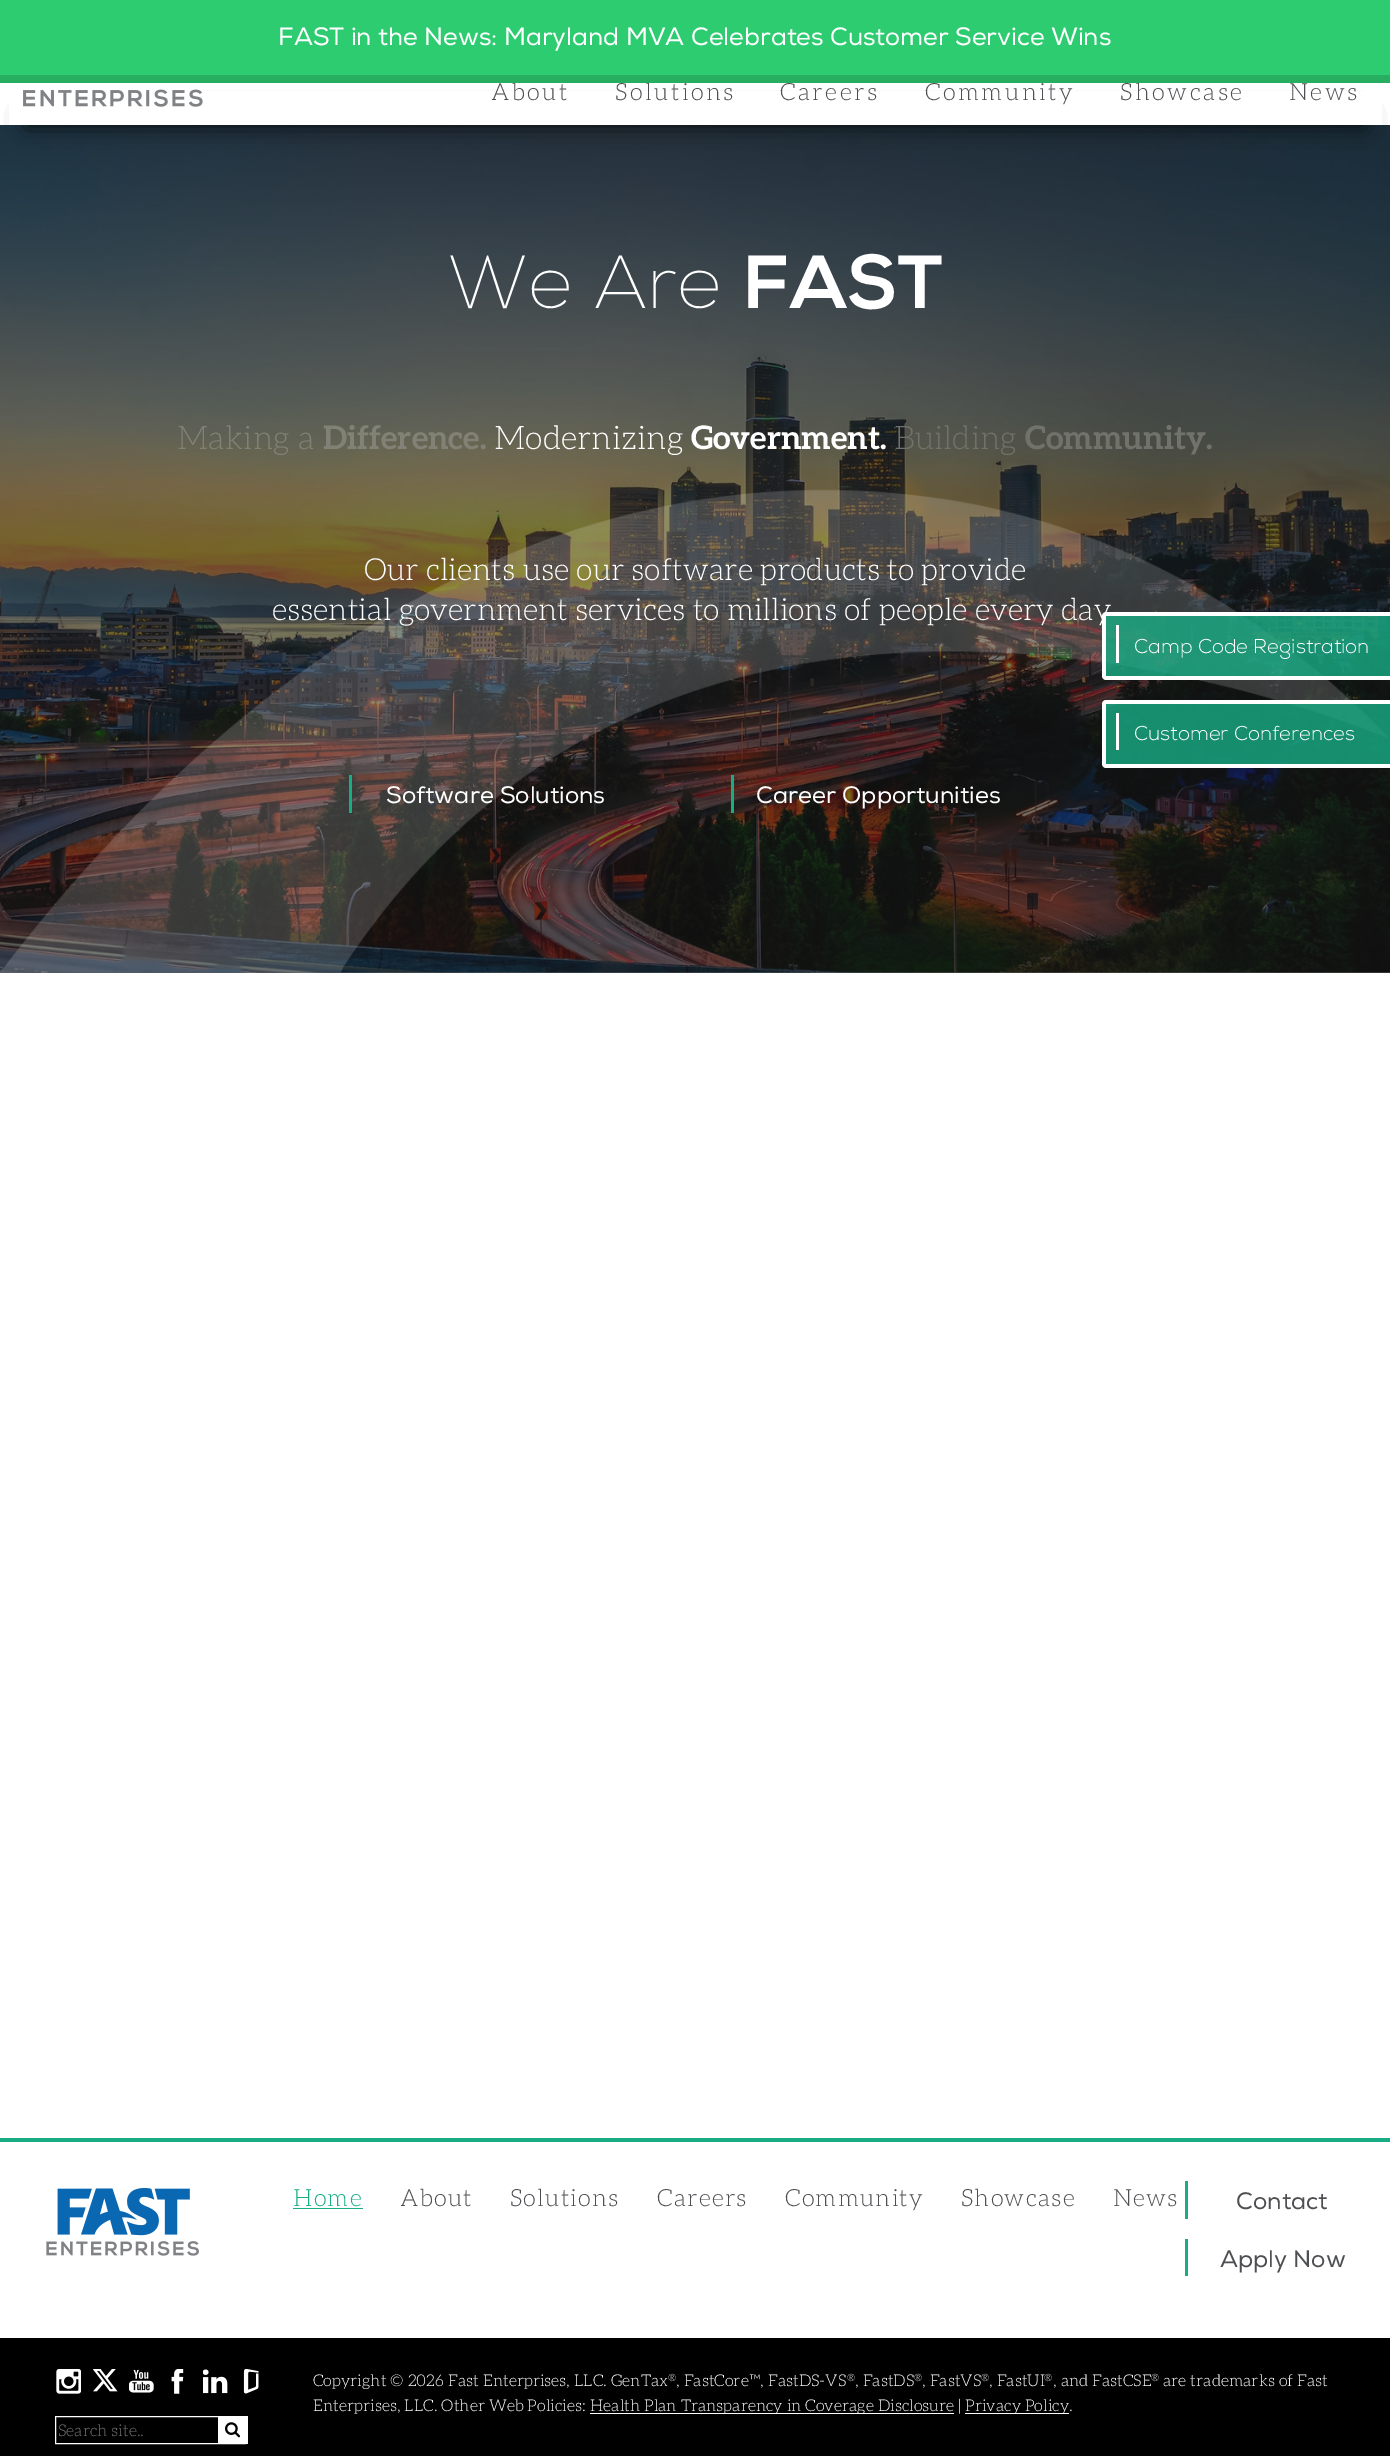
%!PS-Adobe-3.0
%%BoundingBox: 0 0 1390 2456
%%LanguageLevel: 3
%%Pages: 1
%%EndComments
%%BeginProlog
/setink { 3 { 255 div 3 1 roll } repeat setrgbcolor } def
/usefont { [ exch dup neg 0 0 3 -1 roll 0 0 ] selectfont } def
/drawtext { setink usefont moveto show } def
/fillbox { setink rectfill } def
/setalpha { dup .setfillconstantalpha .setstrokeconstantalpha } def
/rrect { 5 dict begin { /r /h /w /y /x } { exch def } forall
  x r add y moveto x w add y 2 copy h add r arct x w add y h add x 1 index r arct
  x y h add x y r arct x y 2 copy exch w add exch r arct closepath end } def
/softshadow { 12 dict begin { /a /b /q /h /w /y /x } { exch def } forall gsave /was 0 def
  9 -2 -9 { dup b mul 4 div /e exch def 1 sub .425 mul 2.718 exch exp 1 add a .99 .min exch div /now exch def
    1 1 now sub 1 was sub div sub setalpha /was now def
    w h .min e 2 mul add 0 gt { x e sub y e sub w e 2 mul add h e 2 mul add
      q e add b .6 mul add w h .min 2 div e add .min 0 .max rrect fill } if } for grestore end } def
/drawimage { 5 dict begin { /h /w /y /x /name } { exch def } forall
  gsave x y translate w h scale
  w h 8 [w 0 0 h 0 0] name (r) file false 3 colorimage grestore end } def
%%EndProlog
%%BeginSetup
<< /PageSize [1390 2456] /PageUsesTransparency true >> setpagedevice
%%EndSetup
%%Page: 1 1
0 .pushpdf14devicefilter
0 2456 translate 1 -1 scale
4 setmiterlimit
0 0 1390 2456 255 255 255 fillbox
0 972 1390 1 118 118 118 fillbox
0 0 1390 75 46 204 113 fillbox
(assets/img2.rgb) 0 125 1390 848 drawimage
0 0 0 setink
28 115 1335 10 5 11 0.8 softshadow
9 91 1373 34 255 255 255 fillbox
/aleo-Light 23.75 usefont
78 79 82 setink
491 100 moveto 2.5 0 (About) ashow
615 100 moveto 2.5 0 (Solutions) ashow
1120 100 moveto 2.5 0 (Showcase) ashow
0 75 1390 8 39 174 96 fillbox
(FAST in the News: Maryland MVA Celebrates Customer Service Wins) 278 45 /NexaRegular-Regular 25 255 255 255 drawtext
(assets/img1.rgb) 23 89 180 18 drawimage
/aleo-Light 23.75 usefont
78 79 82 setink
780 100 moveto 2.5 0 (Careers) ashow
925 100 moveto 2.5 0 (Community) ashow
1289 100 moveto 2.5 0 (News) ashow
(We Are) 447 308 /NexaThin-Thin 75 255 255 255 drawtext
(FAST) 742 308 /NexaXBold-ExtraBold 75 255 255 255 drawtext
(Making a) 177 449 /aleo-Light 32.5 129 129 118 drawtext
(Difference.) 323 449 /aleo-Bold 32.5 129 129 118 drawtext
(Modernizing) 494 449 /aleo-Light 32.5 255 255 255 drawtext
(Government.) 691 449 /aleo-Bold 32.5 255 255 255 drawtext
(Building) 894 449 /aleo-Light 32.5 113 114 107 drawtext
(Community.) 1025 449 /aleo-Bold 32.5 113 114 107 drawtext
(assets/img3.rgb) 0 489 1389 484 drawimage
(Our clients use our software products to provide) 364 580 /aleo-Light 30.5 255 255 255 drawtext
(essential government services to millions of people every day) 272 620 /aleo-Light 30.5 255 255 255 drawtext
349 775 3 38 24 173 133 fillbox
(Software Solutions) 386 803 /NexaRegular-Regular 23.75 255 255 255 drawtext
731 775 3 38 24 173 133 fillbox
(Career Opportunities) 756 803 /NexaRegular-Regular 23.75 255 255 255 drawtext
0.8 setalpha
24 173 133 setink
1107 613 moveto 1390 613 lineto 1390 680 lineto 1107 680 lineto 1105 680 1103 678 1103 676 curveto 1103 617 lineto 1103 615 1105 613 1107 613 curveto closepath fill
1 setalpha
255 255 255 setink
1106 612 moveto 1390 612 lineto 1390 680 lineto 1106 680 lineto 1104 680 1102 678 1102 676 curveto 1102 616 lineto 1102 614 1104 612 1106 612 curveto closepath 1106 616 moveto 1390 616 lineto 1390 676 lineto 1106 676 lineto closepath eofill
1116 625 3 38 255 255 255 fillbox
(Camp Code Registration) 1134 653 /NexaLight-Light 20 255 255 255 drawtext
0.8 setalpha
24 173 133 setink
1107 700 moveto 1390 700 lineto 1390 768 lineto 1107 768 lineto 1105 768 1103 766 1103 764 curveto 1103 704 lineto 1103 702 1105 700 1107 700 curveto closepath fill
1 setalpha
255 255 255 setink
1106 700 moveto 1390 700 lineto 1390 768 lineto 1106 768 lineto 1104 768 1102 766 1102 764 curveto 1102 704 lineto 1102 702 1104 700 1106 700 curveto closepath 1106 704 moveto 1390 704 lineto 1390 764 lineto 1106 764 lineto closepath eofill
1116 713 3 37 255 255 255 fillbox
(Customer Conferences) 1134 740 /NexaLight-Light 20 255 255 255 drawtext
0 2138 1390 4 24 173 133 fillbox
(assets/img4.rgb) 46 2188 153 68 drawimage
/aleo-Light 23.75 usefont
293 2206 moveto 1.25 0 (Home) ashow
293 2208 70 1 24 173 133 fillbox
78 79 82 setink
400 2206 moveto 1.25 0 (About) ashow
510 2206 moveto 1.25 0 (Solutions) ashow
657 2206 moveto 1.25 0 (Careers) ashow
785 2206 moveto 1.25 0 (Community) ashow
961 2206 moveto 1.25 0 (Showcase) ashow
1113 2206 moveto 1.25 0 (News) ashow
1185 2181 3 38 24 173 133 fillbox
(Contact) 1236 2209 /NexaRegular-Regular 23.75 78 79 82 drawtext
1185 2239 3 37 24 173 133 fillbox
(Apply Now) 1220 2267 /NexaRegular-Regular 23.75 78 79 82 drawtext
0 2338 1390 118 0 0 0 fillbox
(Copyright © 2026 Fast Enterprises, LLC. GenTax) 313 2386 /aleo-Light 16.25 255 255 255 drawtext
(®) 668 2381 /aleo-Light 10 255 255 255 drawtext
(, FastCore™, FastDS-VS) 676 2386 /aleo-Light 16.25 255 255 255 drawtext
(®) 847 2381 /aleo-Light 10 255 255 255 drawtext
(, FastDS) 855 2386 /aleo-Light 16.25 255 255 255 drawtext
(®) 914 2381 /aleo-Light 10 255 255 255 drawtext
(, FastVS) 922 2386 /aleo-Light 16.25 255 255 255 drawtext
(®) 981 2381 /aleo-Light 10 255 255 255 drawtext
(, FastUI) 989 2386 /aleo-Light 16.25 255 255 255 drawtext
(®) 1044 2381 /aleo-Light 10 255 255 255 drawtext
(, and FastCSE) 1053 2386 /aleo-Light 16.25 255 255 255 drawtext
(®) 1151 2381 /aleo-Light 10 255 255 255 drawtext
(are trademarks of Fast) 1163 2386 /aleo-Light 16.25 255 255 255 drawtext
(Enterprises, LLC. Other Web Policies:) 313 2411 /aleo-Light 16.25 255 255 255 drawtext
590 2413 364 1 255 255 255 fillbox
(Health Plan Transparency in Coverage Disclosure |) 590 2411 /aleo-Light 16.25 255 255 255 drawtext
965 2413 104 1 255 255 255 fillbox
(Privacy Policy.) 965 2411 /aleo-Light 16.25 255 255 255 drawtext
(assets/img5.rgb) 56 2369 25 25 drawimage
(assets/img6.rgb) 93 2369 25 23 drawimage
(assets/img7.rgb) 129 2369 25 24 drawimage
(assets/img8.rgb) 171 2369 13 25 drawimage
(assets/img9.rgb) 203 2369 25 25 drawimage
(assets/img10.rgb) 243 2369 16 25 drawimage
55.5 2416.5 190 27 rectstroke
(Search site..) 58 2436 /aleo-Light 16.25 117 117 117 drawtext
218 2416 30 28 255 255 255 fillbox
(assets/img11.rgb) 225 2422 16 16 drawimage
.poppdf14devicefilter showpage
%%EOF
